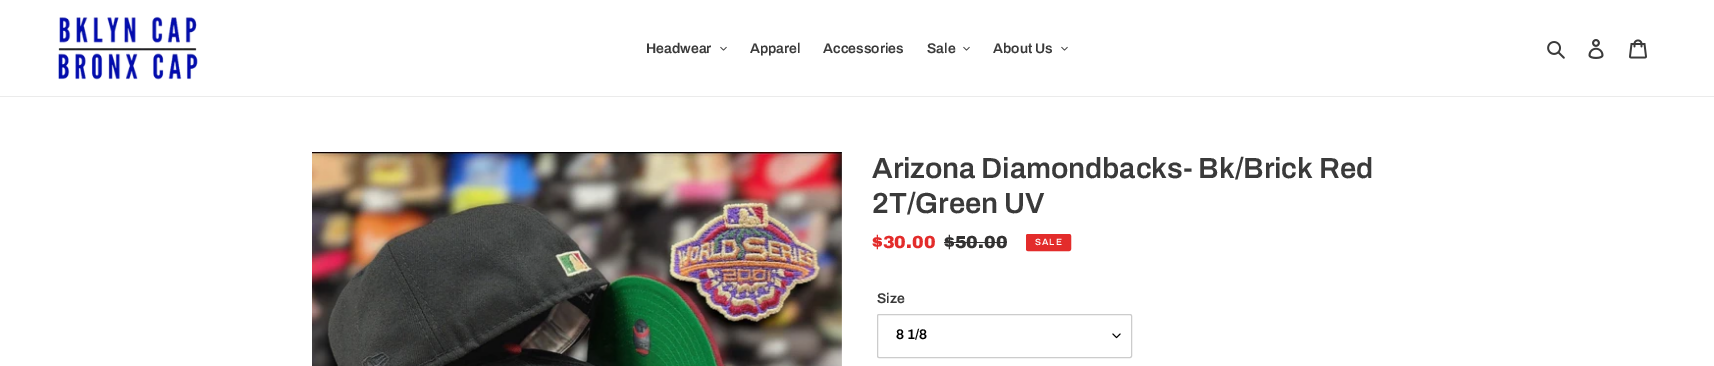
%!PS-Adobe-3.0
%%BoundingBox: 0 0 1714 366
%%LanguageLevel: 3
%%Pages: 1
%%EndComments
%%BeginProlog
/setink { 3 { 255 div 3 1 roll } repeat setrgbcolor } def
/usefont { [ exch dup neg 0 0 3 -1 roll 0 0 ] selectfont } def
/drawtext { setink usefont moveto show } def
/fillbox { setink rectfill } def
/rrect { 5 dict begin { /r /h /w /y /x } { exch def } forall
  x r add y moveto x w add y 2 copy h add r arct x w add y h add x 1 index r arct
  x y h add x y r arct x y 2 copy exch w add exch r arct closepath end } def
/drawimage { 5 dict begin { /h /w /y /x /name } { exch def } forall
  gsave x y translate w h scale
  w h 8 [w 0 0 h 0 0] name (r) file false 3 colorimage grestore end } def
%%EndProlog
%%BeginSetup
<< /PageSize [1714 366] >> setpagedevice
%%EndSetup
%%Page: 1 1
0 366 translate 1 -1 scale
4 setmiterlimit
0 0 1714 366 255 255 255 fillbox
0 96 1714 1 235 235 235 fillbox
(assets/img1.rgb) 58 16 140 64 drawimage
(Headwear) 646 53 /Archivo-SemiBold 14 58 58 58 drawtext
(assets/img2.rgb) 720 46 7 5 drawimage
(Apparel) 750 53 /Archivo-SemiBold 14 58 58 58 drawtext
(Accessories) 823 53 /Archivo-SemiBold 14 58 58 58 drawtext
(Sale) 927 53 /Archivo-SemiBold 14 58 58 58 drawtext
(assets/img2.rgb) 963 46 7 5 drawimage
(About Us) 993 53 /Archivo-SemiBold 14 58 58 58 drawtext
(assets/img2.rgb) 1061 46 7 5 drawimage
(assets/img3.rgb) 1547 41 18 18 drawimage
(assets/img4.rgb) 1588 39 16 20 drawimage
(assets/img5.rgb) 1629 39 18 20 drawimage
(assets/img6.rgb) 312 152 530 214 drawimage
(Arizona Diamondbacks- Bk/Brick Red) 872 178 /Archivo-SemiBold 29 58 58 58 drawtext
(2T/Green UV) 872 213 /Archivo-SemiBold 29 58 58 58 drawtext
($30.00) 872 248 /Archivo-Black 17.5 227 44 43 drawtext
($50.00) 944 248 /Archivo-Black 17.5 51 50 50 drawtext
944 242 63 1 51 50 50 fillbox
227 44 43 setink
1026.5 234.5 44 16 1.5 rrect gsave fill grestore
stroke
/Archivo-SemiBold 9 usefont
255 255 255 setink
1035 245 moveto 1 0 (SALE) ashow
(Size) 877 303 /Archivo-SemiBold 14 58 58 58 drawtext
(assets/img7.rgb) 1112 333 9 6 drawimage
204 204 204 setink
877.5 314.5 254 43 1.5 rrect stroke
(8 1/8) 896 339 /Archivo-SemiBold 14 0 0 0 drawtext
showpage
%%EOF
